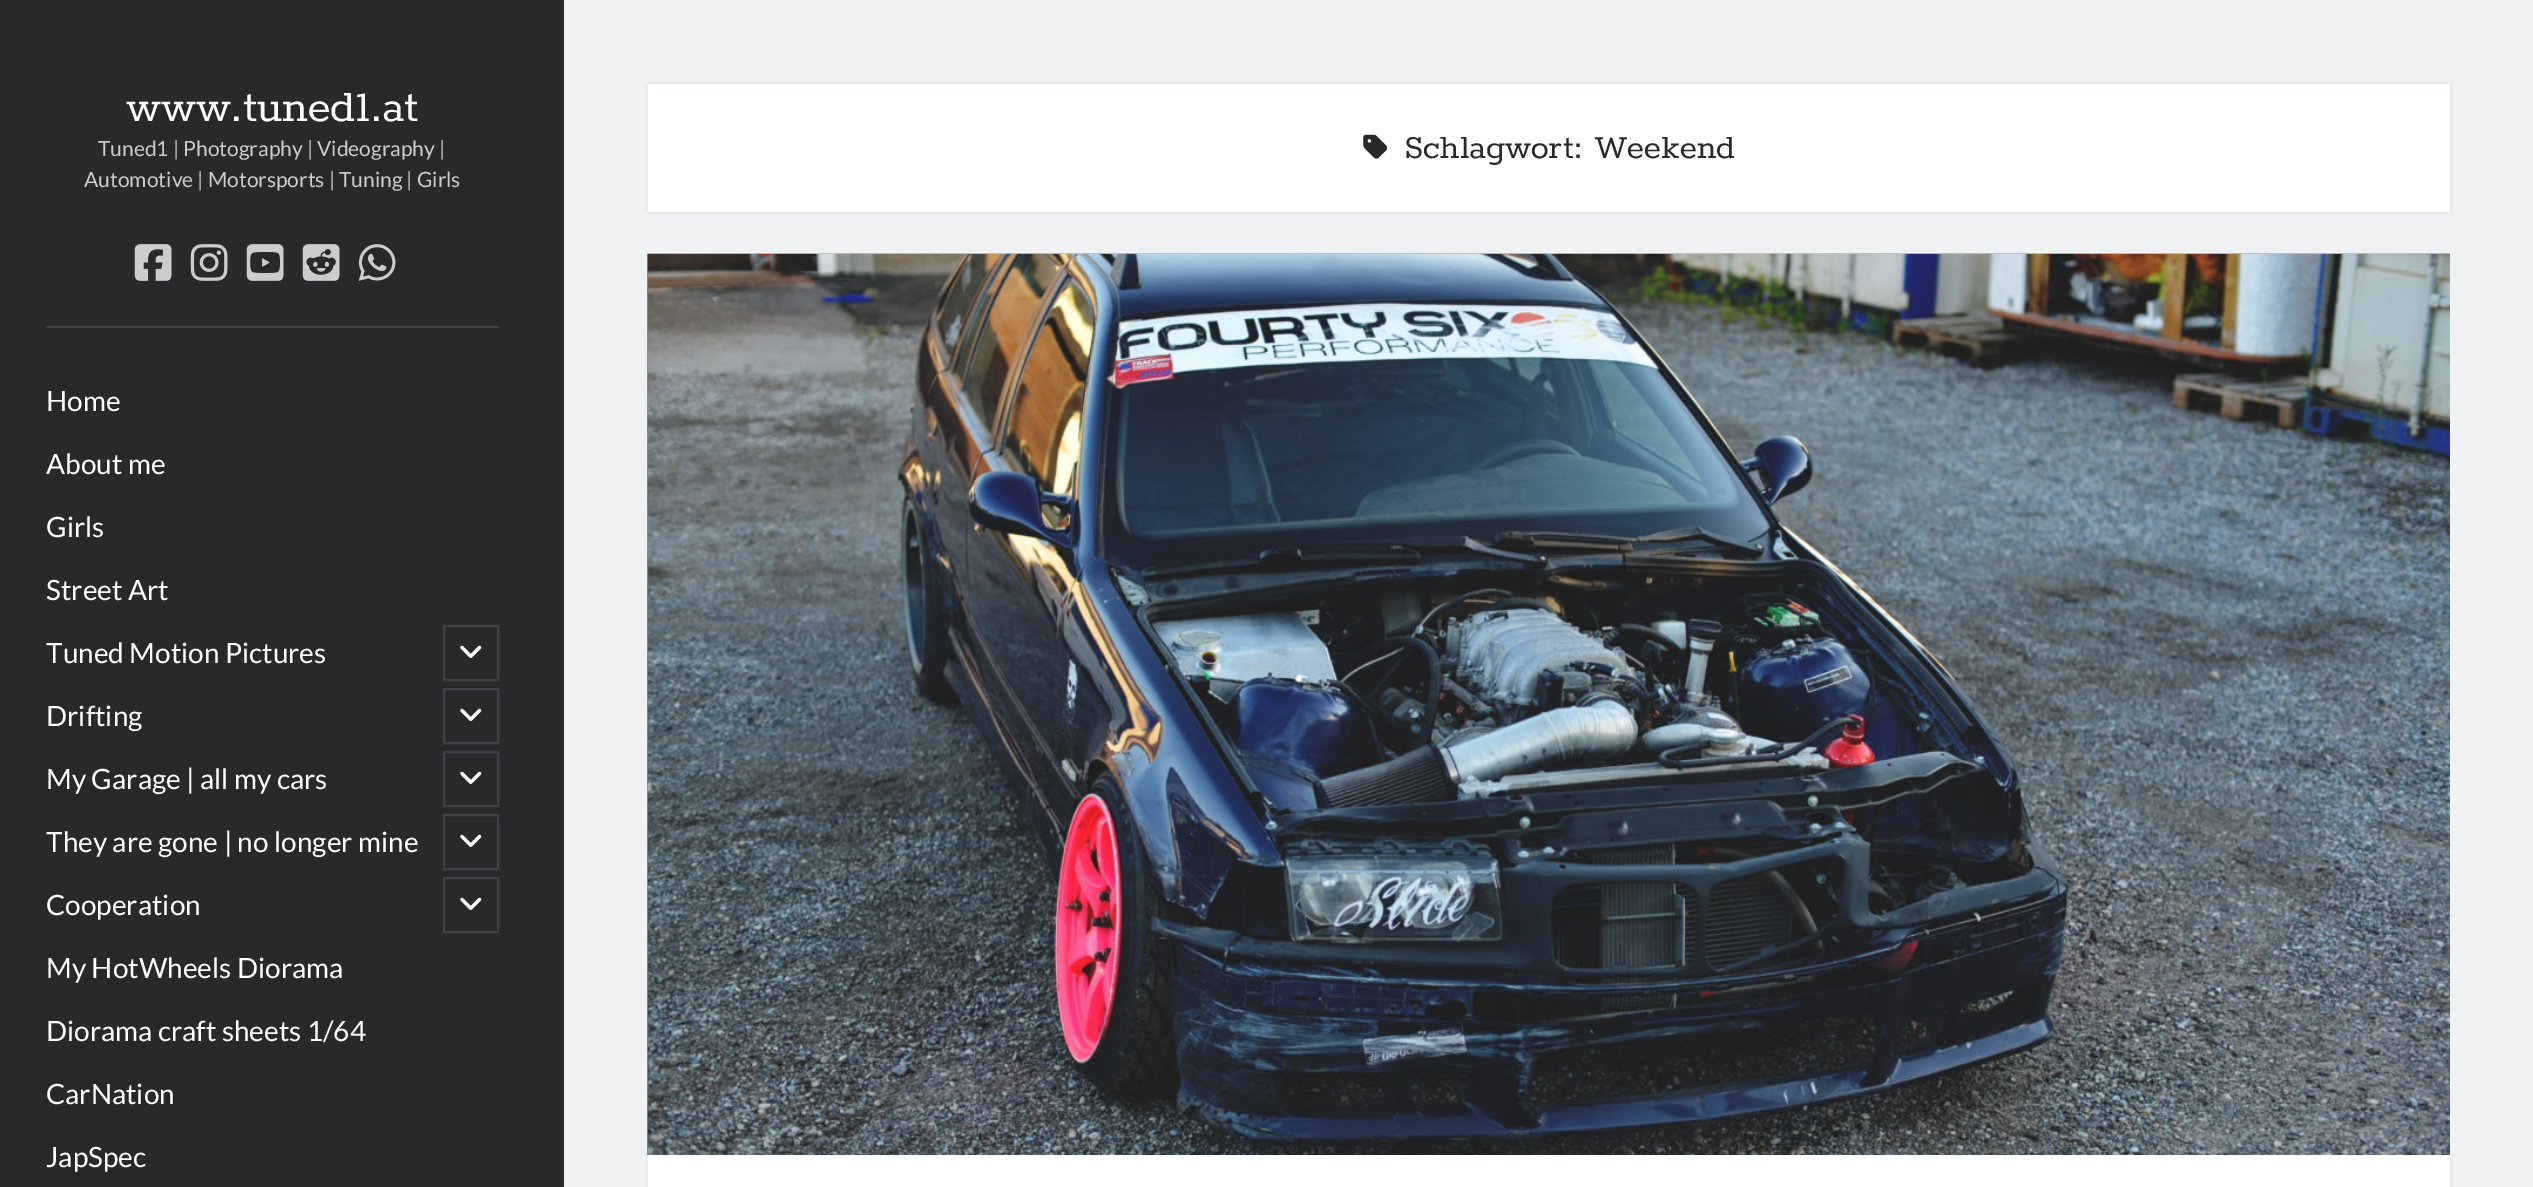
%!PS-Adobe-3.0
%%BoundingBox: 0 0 2533 1187
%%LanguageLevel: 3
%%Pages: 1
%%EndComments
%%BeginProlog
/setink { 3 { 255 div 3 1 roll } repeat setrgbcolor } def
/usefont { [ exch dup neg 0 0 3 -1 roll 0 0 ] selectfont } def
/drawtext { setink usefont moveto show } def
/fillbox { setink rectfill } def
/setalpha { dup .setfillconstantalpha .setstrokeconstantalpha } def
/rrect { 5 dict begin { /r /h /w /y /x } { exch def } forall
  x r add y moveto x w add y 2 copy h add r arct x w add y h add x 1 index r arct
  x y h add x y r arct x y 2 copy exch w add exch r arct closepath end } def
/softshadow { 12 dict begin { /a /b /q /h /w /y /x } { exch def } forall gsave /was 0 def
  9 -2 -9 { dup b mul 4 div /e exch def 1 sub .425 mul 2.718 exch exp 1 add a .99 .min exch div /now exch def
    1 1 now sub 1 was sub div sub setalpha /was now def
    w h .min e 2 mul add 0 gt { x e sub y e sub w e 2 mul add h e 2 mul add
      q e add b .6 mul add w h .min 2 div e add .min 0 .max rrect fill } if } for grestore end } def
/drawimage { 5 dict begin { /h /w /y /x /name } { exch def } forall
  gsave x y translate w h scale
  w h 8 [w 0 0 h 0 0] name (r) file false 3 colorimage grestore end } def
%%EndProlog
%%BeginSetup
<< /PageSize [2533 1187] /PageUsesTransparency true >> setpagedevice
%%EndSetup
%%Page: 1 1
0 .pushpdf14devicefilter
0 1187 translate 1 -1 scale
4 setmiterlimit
0 0 2533 1187 39 41 43 fillbox
(www.tuned1.at) 126 121 /Rokkitt-Regular 49 255 255 255 drawtext
(Tuned1 | Photography | Videography |) 98 156 /Lato-Regular 21 204 204 204 drawtext
(Automotive | Motorsports | Tuning | Girls) 84 187 /Lato-Regular 21 204 204 204 drawtext
(assets/img1.rgb) 134 244 38 37 drawimage
(assets/img2.rgb) 190 244 38 37 drawimage
(assets/img3.rgb) 246 244 38 37 drawimage
(assets/img4.rgb) 302 244 38 37 drawimage
(assets/img5.rgb) 358 244 38 37 drawimage
46 326 453 2 62 65 69 fillbox
(Home) 46 411 /Lato-Regular 28 255 255 255 drawtext
(About me) 46 474 /Lato-Regular 28 255 255 255 drawtext
(Girls) 46 537 /Lato-Regular 28 255 255 255 drawtext
(Street Art) 46 600 /Lato-Regular 28 255 255 255 drawtext
(Tuned Motion Pictures) 46 663 /Lato-Regular 28 255 255 255 drawtext
62 65 69 setink
2 setlinewidth
444 626 54 54 rectstroke
(assets/img6.rgb) 460 645 22 13 drawimage
(Drifting) 46 726 /Lato-Regular 28 255 255 255 drawtext
62 65 69 setink
444 689 54 54 rectstroke
(assets/img6.rgb) 460 708 22 13 drawimage
(My Garage | all my cars) 46 789 /Lato-Regular 28 255 255 255 drawtext
62 65 69 setink
444 752 54 54 rectstroke
(assets/img6.rgb) 460 771 22 13 drawimage
(They are gone | no longer mine) 46 852 /Lato-Regular 28 255 255 255 drawtext
62 65 69 setink
444 815 54 54 rectstroke
(assets/img6.rgb) 460 834 22 13 drawimage
(Cooperation) 46 915 /Lato-Regular 28 255 255 255 drawtext
62 65 69 setink
444 878 54 54 rectstroke
(assets/img6.rgb) 460 897 22 13 drawimage
(My HotWheels Diorama) 46 978 /Lato-Regular 28 255 255 255 drawtext
(Diorama craft sheets 1/64) 46 1041 /Lato-Regular 28 255 255 255 drawtext
(CarNation) 46 1104 /Lato-Regular 28 255 255 255 drawtext
(JapSpec) 46 1167 /Lato-Regular 28 255 255 255 drawtext
564 0 1969 1187 240 241 242 fillbox
39 43 47 setink
648 84 1802 128 0 2 0.1 softshadow
648 84 1802 128 255 255 255 fillbox
(assets/img7.rgb) 1363 134 25 25 drawimage
(Schlagwort: Weekend) 1404 158 /Rokkitt-Regular 36.75 39 41 43 drawtext
39 43 47 setink
648 1155 1802 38 0 2 0.1 softshadow
(assets/img8.rgb) 647 253 1803 902 drawimage
(assets/img9.rgb) 647 253 1803 902 drawimage
648 1155 1802 32 255 255 255 fillbox
.poppdf14devicefilter showpage
%%EOF
